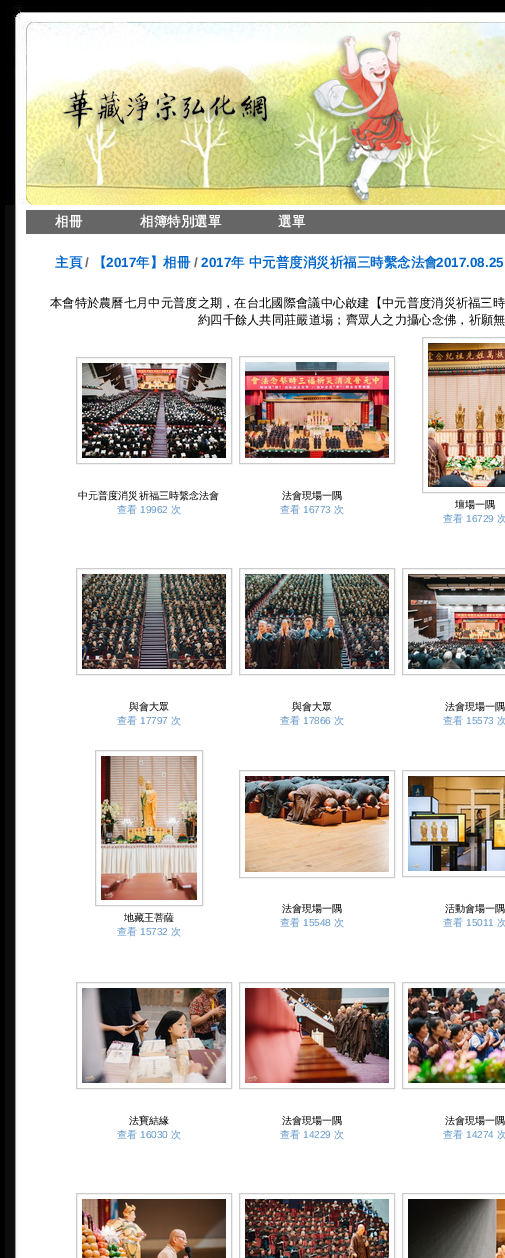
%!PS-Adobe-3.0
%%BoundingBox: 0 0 505 1258
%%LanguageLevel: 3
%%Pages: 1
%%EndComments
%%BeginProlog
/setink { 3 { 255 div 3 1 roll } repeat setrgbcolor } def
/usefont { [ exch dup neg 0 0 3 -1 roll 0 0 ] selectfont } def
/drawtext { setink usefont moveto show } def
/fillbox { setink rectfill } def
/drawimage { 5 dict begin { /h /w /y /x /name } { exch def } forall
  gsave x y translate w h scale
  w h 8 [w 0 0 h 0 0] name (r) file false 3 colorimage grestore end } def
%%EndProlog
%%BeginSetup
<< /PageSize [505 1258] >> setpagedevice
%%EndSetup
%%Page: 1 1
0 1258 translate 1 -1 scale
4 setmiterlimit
0 0 505 1258 0 0 0 fillbox
(assets/img1.rgb) 5 205 500 1053 drawimage
(assets/img2.rgb) 5 5 500 200 drawimage
26 210 479 24 102 102 102 fillbox
(相冊) 55 226 /WenQuanYiZenHei-Bold 13.5 255 255 255 drawtext
(相簿特別選單) 140 226 /WenQuanYiZenHei-Bold 13.5 255 255 255 drawtext
(選單) 278 226 /WenQuanYiZenHei-Bold 13.5 255 255 255 drawtext
(主頁) 55 267 /WenQuanYiZenHei-Bold 13.5 0 102 204 drawtext
(/) 85 267 /LiberationSans-Bold 13.5 105 105 105 drawtext
(【) 93 267 /WenQuanYiZenHei-Bold 13.5 0 102 204 drawtext
(2017) 106 267 /LiberationSans-Bold 13.5 0 102 204 drawtext
(年】相冊) 136 267 /WenQuanYiZenHei-Bold 13.5 0 102 204 drawtext
(/) 194 267 /LiberationSans-Bold 13.5 105 105 105 drawtext
(2017) 201 267 /LiberationSans-Bold 13.5 0 102 204 drawtext
(年 中元普度消災祈福三時繫念法會) 231 267 /WenQuanYiZenHei-Bold 13.5 0 102 204 drawtext
(2017.08.25) 436 267 /LiberationSans-Bold 13.5 0 102 204 drawtext
(本會特於農曆七月中元普度之期，在台北國際會議中心啟建【中元普度消災祈福三時) 50 307 /WenQuanYiZenHei-Medium 12.3 0 0 0 drawtext
(約四千餘人共同莊嚴道場；齊眾人之力攝心念佛，祈願無) 198 324 /WenQuanYiZenHei-Medium 12.3 0 0 0 drawtext
204 204 204 setink
76.5 357.5 155 106 rectstroke
(assets/img3.rgb) 82 363 144 95 drawimage
(中元普度消災祈福三時繫念法會) 78 499 /WenQuanYiZenHei-Medium 10.1 0 0 0 drawtext
(查看) 117 513 /WenQuanYiZenHei-Medium 10.1 102 153 204 drawtext
(19962) 140 513 /LiberationSans-Regular 10.1 102 153 204 drawtext
(次) 171 513 /WenQuanYiZenHei-Medium 10.1 102 153 204 drawtext
204 204 204 setink
239.5 356.5 155 107 rectstroke
(assets/img4.rgb) 245 362 144 96 drawimage
(法會現場一隅) 282 499 /WenQuanYiZenHei-Medium 10.1 0 0 0 drawtext
(查看) 280 513 /WenQuanYiZenHei-Medium 10.1 102 153 204 drawtext
(16773) 303 513 /LiberationSans-Regular 10.1 102 153 204 drawtext
(次) 334 513 /WenQuanYiZenHei-Medium 10.1 102 153 204 drawtext
204 204 204 setink
422.5 337.5 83 155 rectstroke
(assets/img5.rgb) 428 343 77 144 drawimage
(壇場一隅) 455 508 /WenQuanYiZenHei-Medium 10.1 0 0 0 drawtext
(查看) 443 522 /WenQuanYiZenHei-Medium 10.1 102 153 204 drawtext
(16729) 466 522 /LiberationSans-Regular 10.1 102 153 204 drawtext
(次) 497 522 /WenQuanYiZenHei-Medium 10.1 102 153 204 drawtext
204 204 204 setink
76.5 568.5 155 106 rectstroke
(assets/img6.rgb) 82 574 144 95 drawimage
(與會大眾) 129 710 /WenQuanYiZenHei-Medium 10.1 0 0 0 drawtext
(查看) 117 724 /WenQuanYiZenHei-Medium 10.1 102 153 204 drawtext
(17797) 140 724 /LiberationSans-Regular 10.1 102 153 204 drawtext
(次) 171 724 /WenQuanYiZenHei-Medium 10.1 102 153 204 drawtext
204 204 204 setink
239.5 568.5 155 106 rectstroke
(assets/img7.rgb) 245 574 144 95 drawimage
(與會大眾) 292 710 /WenQuanYiZenHei-Medium 10.1 0 0 0 drawtext
(查看) 280 724 /WenQuanYiZenHei-Medium 10.1 102 153 204 drawtext
(17866) 303 724 /LiberationSans-Regular 10.1 102 153 204 drawtext
(次) 334 724 /WenQuanYiZenHei-Medium 10.1 102 153 204 drawtext
204 204 204 setink
402.5 568.5 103 106 rectstroke
(assets/img8.rgb) 408 574 97 95 drawimage
(法會現場一隅) 445 710 /WenQuanYiZenHei-Medium 10.1 0 0 0 drawtext
(查看) 443 724 /WenQuanYiZenHei-Medium 10.1 102 153 204 drawtext
(15573) 466 724 /LiberationSans-Regular 10.1 102 153 204 drawtext
(次) 497 724 /WenQuanYiZenHei-Medium 10.1 102 153 204 drawtext
204 204 204 setink
95.5 750.5 107 155 rectstroke
(assets/img9.rgb) 101 756 96 144 drawimage
(地藏王菩薩) 124 921 /WenQuanYiZenHei-Medium 10.1 0 0 0 drawtext
(查看) 117 935 /WenQuanYiZenHei-Medium 10.1 102 153 204 drawtext
(15732) 140 935 /LiberationSans-Regular 10.1 102 153 204 drawtext
(次) 171 935 /WenQuanYiZenHei-Medium 10.1 102 153 204 drawtext
204 204 204 setink
239.5 770.5 155 107 rectstroke
(assets/img10.rgb) 245 776 144 96 drawimage
(法會現場一隅) 282 912 /WenQuanYiZenHei-Medium 10.1 0 0 0 drawtext
(查看) 280 926 /WenQuanYiZenHei-Medium 10.1 102 153 204 drawtext
(15548) 303 926 /LiberationSans-Regular 10.1 102 153 204 drawtext
(次) 334 926 /WenQuanYiZenHei-Medium 10.1 102 153 204 drawtext
204 204 204 setink
402.5 770.5 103 106 rectstroke
(assets/img11.rgb) 408 776 97 95 drawimage
(活動會場一隅) 445 912 /WenQuanYiZenHei-Medium 10.1 0 0 0 drawtext
(查看) 443 926 /WenQuanYiZenHei-Medium 10.1 102 153 204 drawtext
(15011) 466 926 /LiberationSans-Regular 10.1 102 153 204 drawtext
(次) 497 926 /WenQuanYiZenHei-Medium 10.1 102 153 204 drawtext
204 204 204 setink
76.5 982.5 155 106 rectstroke
(assets/img12.rgb) 82 988 144 95 drawimage
(法寶結緣) 129 1124 /WenQuanYiZenHei-Medium 10.1 0 0 0 drawtext
(查看) 117 1138 /WenQuanYiZenHei-Medium 10.1 102 153 204 drawtext
(16030) 140 1138 /LiberationSans-Regular 10.1 102 153 204 drawtext
(次) 171 1138 /WenQuanYiZenHei-Medium 10.1 102 153 204 drawtext
204 204 204 setink
239.5 982.5 155 106 rectstroke
(assets/img13.rgb) 245 988 144 95 drawimage
(法會現場一隅) 282 1124 /WenQuanYiZenHei-Medium 10.1 0 0 0 drawtext
(查看) 280 1138 /WenQuanYiZenHei-Medium 10.1 102 153 204 drawtext
(14229) 303 1138 /LiberationSans-Regular 10.1 102 153 204 drawtext
(次) 334 1138 /WenQuanYiZenHei-Medium 10.1 102 153 204 drawtext
204 204 204 setink
402.5 982.5 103 106 rectstroke
(assets/img14.rgb) 408 988 97 95 drawimage
(法會現場一隅) 445 1124 /WenQuanYiZenHei-Medium 10.1 0 0 0 drawtext
(查看) 443 1138 /WenQuanYiZenHei-Medium 10.1 102 153 204 drawtext
(14274) 466 1138 /LiberationSans-Regular 10.1 102 153 204 drawtext
(次) 497 1138 /WenQuanYiZenHei-Medium 10.1 102 153 204 drawtext
204 204 204 setink
76.5 1193.5 155 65 rectstroke
(assets/img15.rgb) 82 1199 144 59 drawimage
239.5 1193.5 155 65 rectstroke
(assets/img16.rgb) 245 1199 144 59 drawimage
402.5 1193.5 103 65 rectstroke
(assets/img17.rgb) 408 1199 97 59 drawimage
showpage
%%EOF
